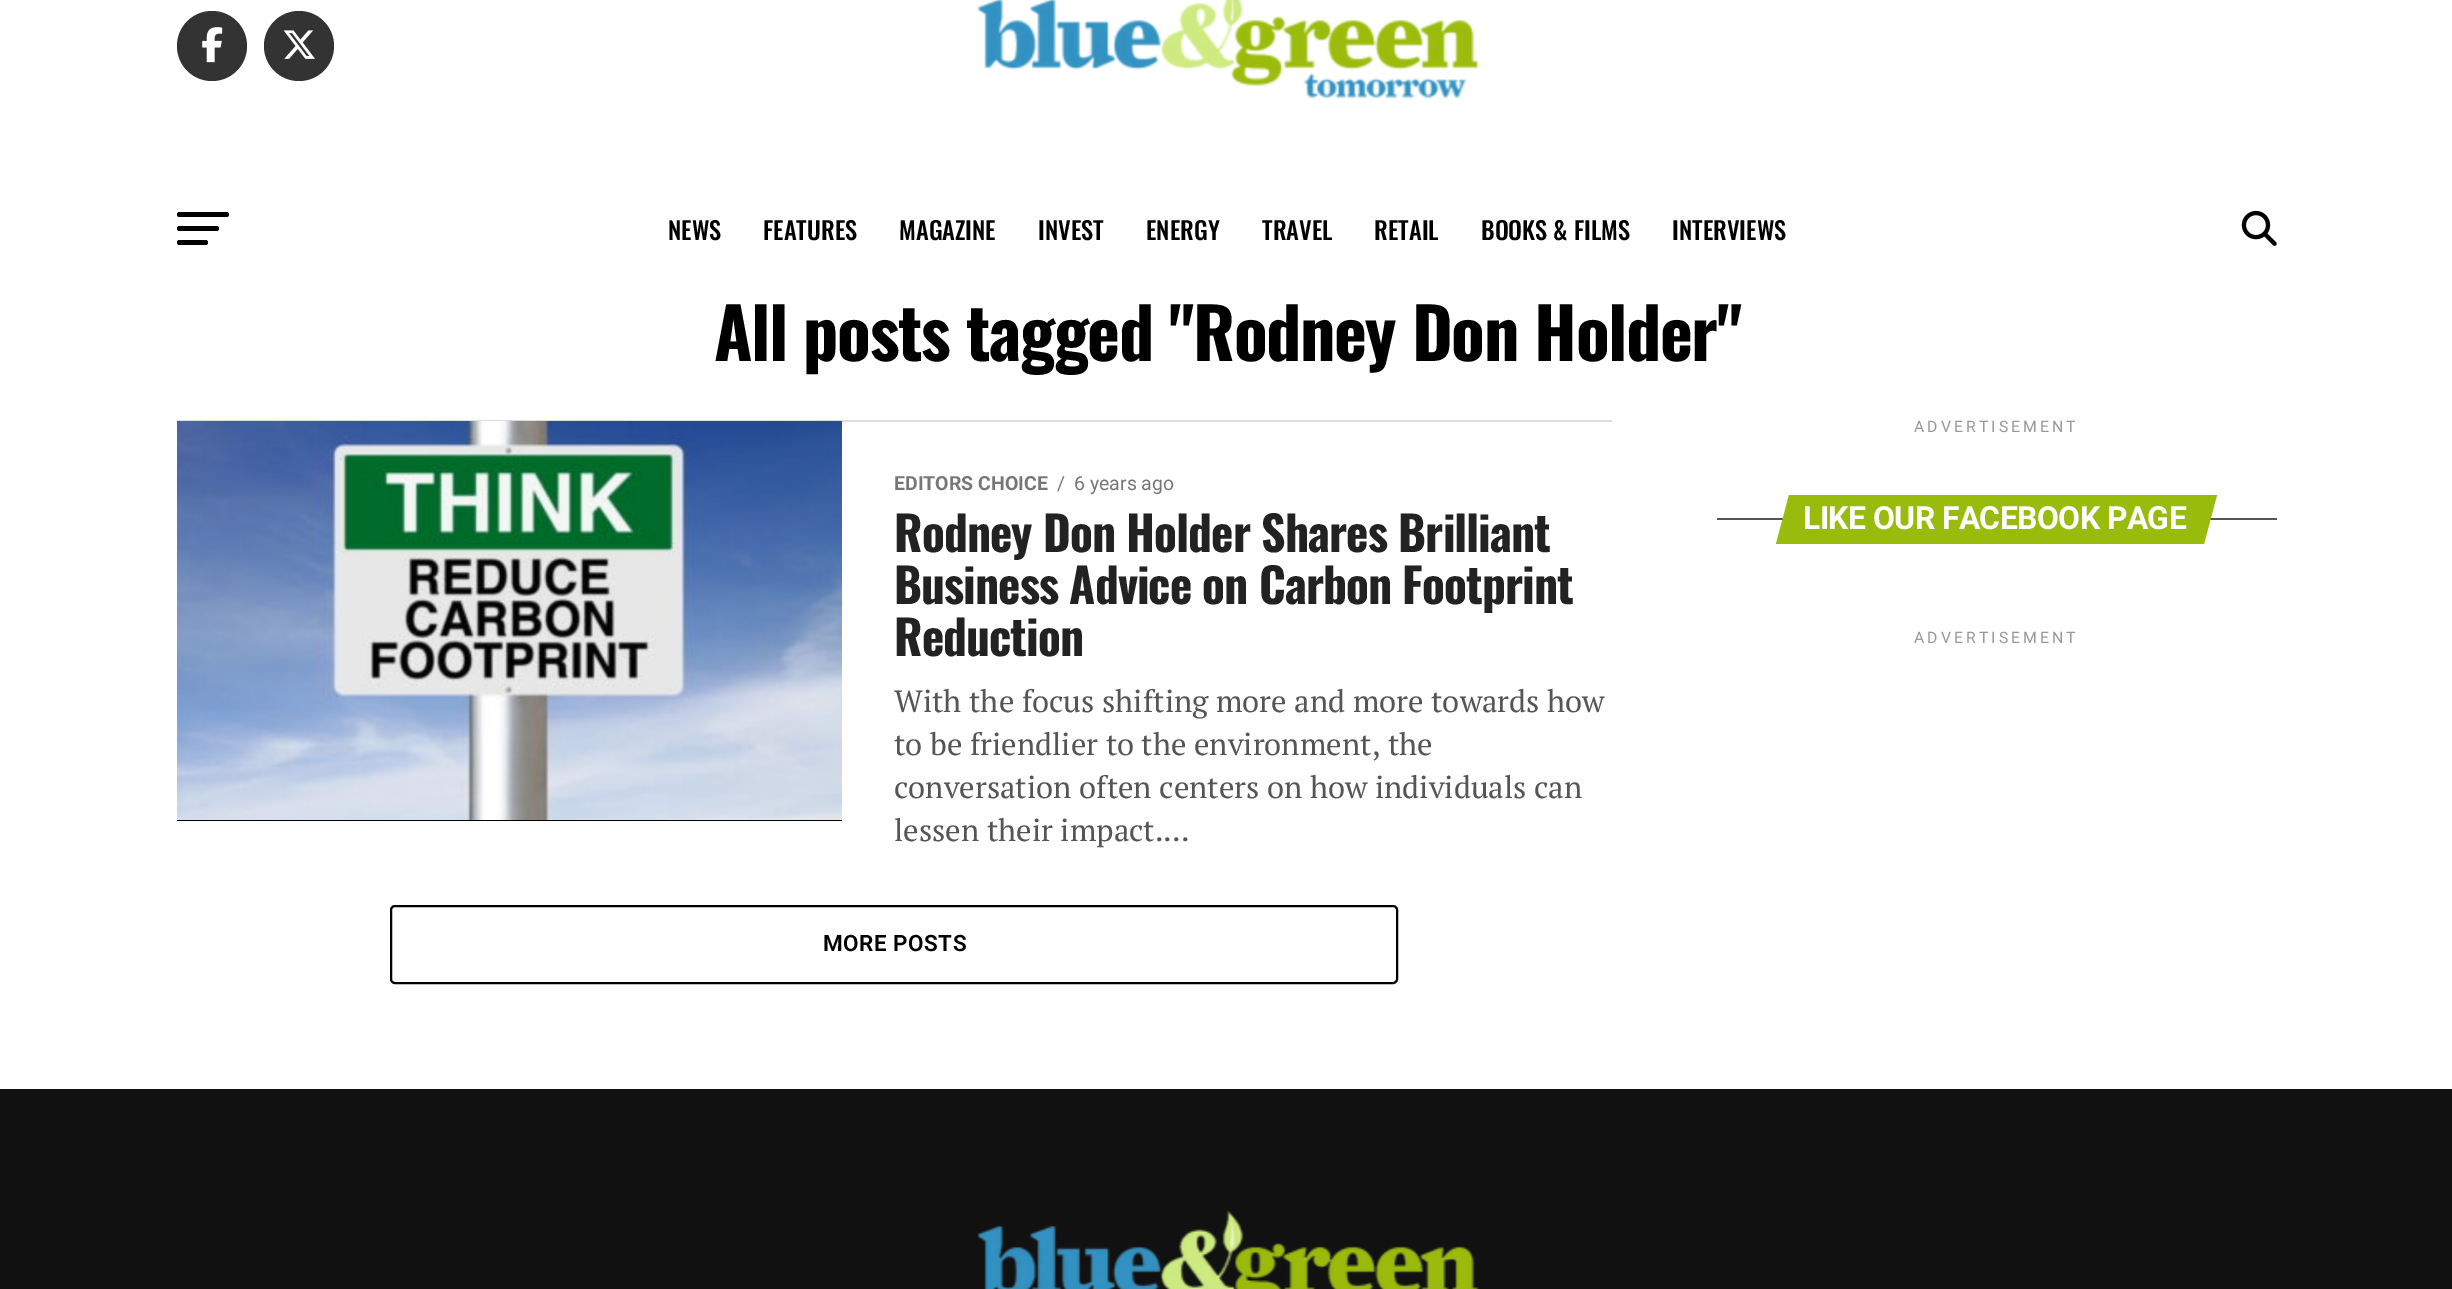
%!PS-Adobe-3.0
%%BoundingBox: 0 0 2452 1289
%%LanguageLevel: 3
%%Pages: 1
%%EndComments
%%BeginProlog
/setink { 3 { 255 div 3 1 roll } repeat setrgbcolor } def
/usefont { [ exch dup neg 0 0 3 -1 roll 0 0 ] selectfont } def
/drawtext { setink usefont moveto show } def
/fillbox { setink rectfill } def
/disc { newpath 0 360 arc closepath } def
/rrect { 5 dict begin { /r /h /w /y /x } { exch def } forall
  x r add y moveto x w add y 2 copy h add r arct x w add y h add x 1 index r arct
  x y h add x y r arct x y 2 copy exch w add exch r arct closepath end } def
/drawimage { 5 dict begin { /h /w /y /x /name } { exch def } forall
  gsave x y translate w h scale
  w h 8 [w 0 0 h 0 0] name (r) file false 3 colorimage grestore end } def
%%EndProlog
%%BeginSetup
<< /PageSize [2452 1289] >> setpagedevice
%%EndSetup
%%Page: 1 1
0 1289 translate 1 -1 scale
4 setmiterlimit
0 0 2452 1289 255 255 255 fillbox
51 51 51 setink
212 46 35 disc fill
(assets/img1.rgb) 202 27 21 36 drawimage
299 46 35 disc fill
(assets/img2.rgb) 283 30 32 29 drawimage
(assets/img3.rgb) 977 0 503 99 drawimage
0 0 0 setink
177 212 52 5 2.5 rrect fill
177 226 42 5 2.5 rrect fill
177 240 31 5 2.5 rrect fill
(NEWS) 668 240 /Oswald-Medium 24.5 0 0 0 drawtext
(FEATURES) 763 240 /Oswald-Medium 24.5 0 0 0 drawtext
(MAGAZINE) 899 240 /Oswald-Medium 24.5 0 0 0 drawtext
(INVEST) 1038 240 /Oswald-Medium 24.5 0 0 0 drawtext
(ENERGY) 1146 240 /Oswald-Medium 24.5 0 0 0 drawtext
(TRAVEL) 1262 240 /Oswald-Medium 24.5 0 0 0 drawtext
(RETAIL) 1374 240 /Oswald-Medium 24.5 0 0 0 drawtext
(BOOKS & FILMS) 1481 240 /Oswald-Medium 24.5 0 0 0 drawtext
(INTERVIEWS) 1672 240 /Oswald-Medium 24.5 0 0 0 drawtext
(assets/img4.rgb) 2241 210 36 36 drawimage
/Oswald-Bold 70 usefont
714 361 moveto -1.4 0 (All posts tagged "Rodney Don Holder") ashow
177 420 1435 2 221 221 221 fillbox
177 820 665 1 0 0 0 fillbox
(assets/img5.rgb) 177 421 665 399 drawimage
(EDITORS CHOICE) 894 490 /Roboto-Bold 19.5 119 119 119 drawtext
(/) 1057 490 /Roboto-Regular 19.5 119 119 119 drawtext
(6 years ago) 1074 490 /Roboto-Regular 19.5 119 119 119 drawtext
/Oswald-Bold 47.6 usefont
34 34 34 setink
894 552 moveto -0.95 0 (Rodney Don Holder Shares Brilliant) ashow
894 604 moveto -0.95 0 (Business Advice on Carbon Footprint) ashow
894 656 moveto -0.95 0 (Reduction) ashow
(With the focus shifting more and more towards how) 894 712 /PTSerif-Regular 30.8 85 85 85 drawtext
(to be friendlier to the environment, the) 894 755 /PTSerif-Regular 30.8 85 85 85 drawtext
(conversation often centers on how individuals can) 894 798 /PTSerif-Regular 30.8 85 85 85 drawtext
(lessen their impact....) 894 841 /PTSerif-Regular 30.8 85 85 85 drawtext
0 0 0 setink
2 setlinewidth
391 906 1006 77 4 rrect stroke
/Roboto-SemiBold 22.5 usefont
823 951 moveto 0.5 0 (MORE POSTS) ashow
/Roboto-Regular 15.75 usefont
153 153 153 setink
1914 432 moveto 3.1 0 (ADVERTISEMENT) ashow
1717 518 560 2 85 85 85 fillbox
153 187 11 setink
1789 495 moveto 2217 495 lineto 2204 544 lineto 1776 544 lineto closepath fill
/Roboto-Bold 31.9 usefont
255 255 255 setink
1803 529 moveto -0.6 0 (LIKE OUR FACEBOOK PAGE) ashow
/Roboto-Regular 15.75 usefont
153 153 153 setink
1914 643 moveto 3.1 0 (ADVERTISEMENT) ashow
0 1089 2452 200 17 17 17 fillbox
(assets/img6.rgb) 977 1210 502 79 drawimage
showpage
%%EOF
